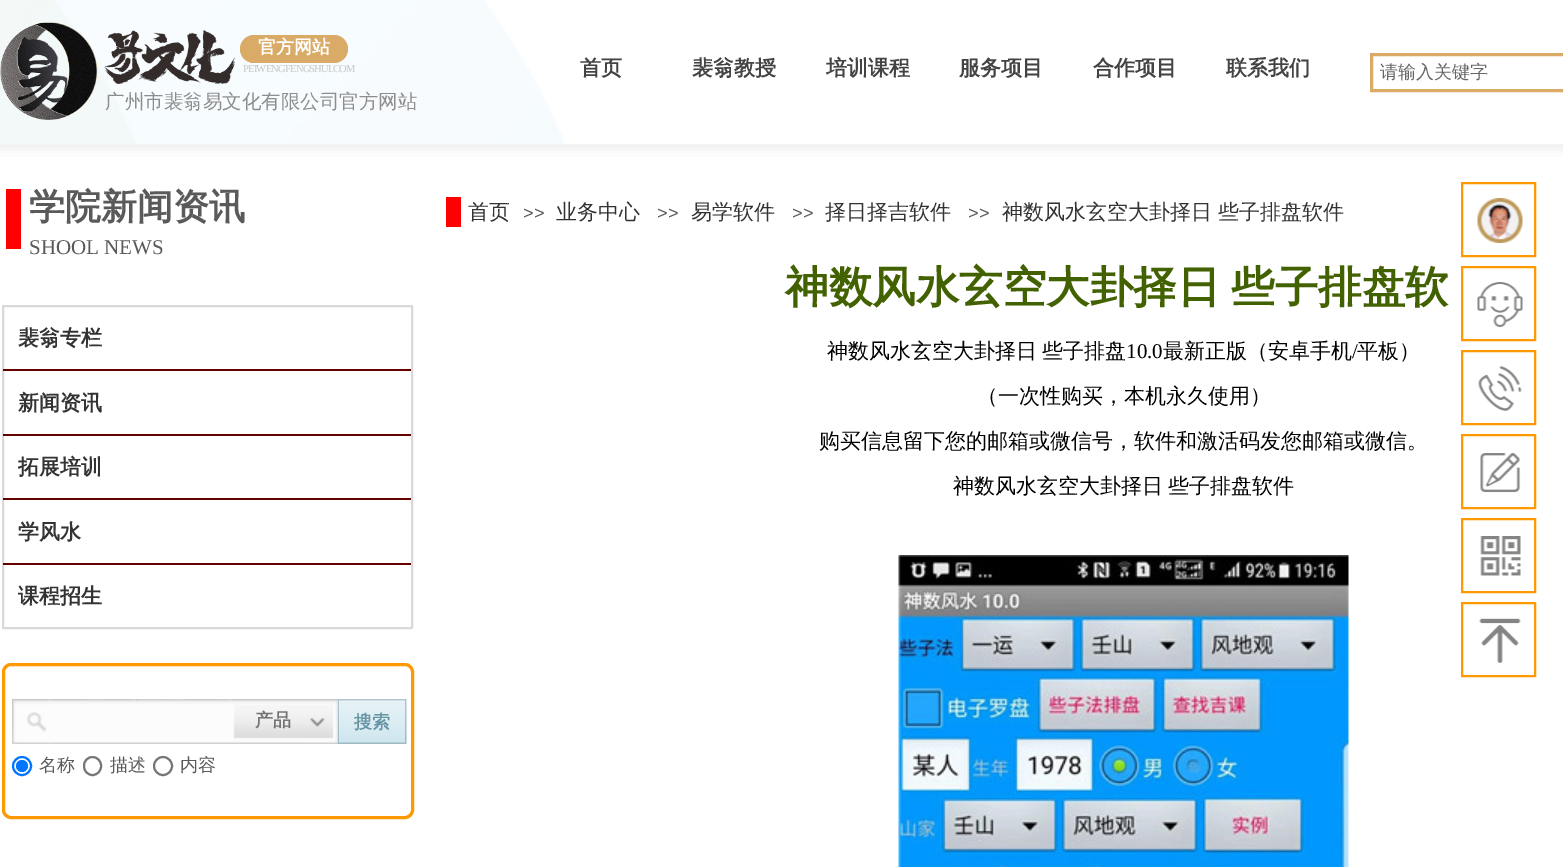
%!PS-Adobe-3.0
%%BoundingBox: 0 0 1563 867
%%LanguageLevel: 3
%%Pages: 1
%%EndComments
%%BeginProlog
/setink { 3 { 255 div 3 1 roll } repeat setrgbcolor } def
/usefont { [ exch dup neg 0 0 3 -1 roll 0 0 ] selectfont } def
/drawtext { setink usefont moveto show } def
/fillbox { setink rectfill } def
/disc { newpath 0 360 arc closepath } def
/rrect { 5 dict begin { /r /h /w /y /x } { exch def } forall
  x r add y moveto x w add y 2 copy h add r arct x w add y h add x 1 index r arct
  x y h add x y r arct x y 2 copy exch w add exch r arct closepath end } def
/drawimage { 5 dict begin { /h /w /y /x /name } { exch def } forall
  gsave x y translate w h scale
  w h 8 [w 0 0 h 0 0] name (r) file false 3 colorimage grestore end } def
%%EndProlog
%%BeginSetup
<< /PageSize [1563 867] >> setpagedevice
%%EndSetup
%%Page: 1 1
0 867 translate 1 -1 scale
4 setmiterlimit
0 0 1563 867 255 255 255 fillbox
(assets/img1.rgb) 0 0 564 144 drawimage
(assets/img2.rgb) 0 22 98 98 drawimage
(assets/img3.rgb) 103 30 133 54 drawimage
217 171 102 setink
240 35 108 28 14 rrect fill
(官方网站) 258 53 /WenQuanYiZenHei-Bold 18 255 255 255 drawtext
/LiberationSerif-Regular 10.5 usefont
199 199 199 setink
243 72 moveto -0.75 0 (PEIWENGFENGSHUI.COM) ashow
(首页) 580 75 /WenQuanYiZenHei-Bold 21 67 67 67 drawtext
(裴翁教授) 692 75 /WenQuanYiZenHei-Bold 21 67 67 67 drawtext
(培训课程) 826 75 /WenQuanYiZenHei-Bold 21 67 67 67 drawtext
(服务项目) 959 75 /WenQuanYiZenHei-Bold 21 67 67 67 drawtext
(合作项目) 1093 75 /WenQuanYiZenHei-Bold 21 67 67 67 drawtext
(联系我们) 1226 75 /WenQuanYiZenHei-Bold 21 67 67 67 drawtext
217 171 102 setink
3 setlinewidth
1371.5 54.5 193 36 rectstroke
(请输入关键字) 1380 78 /WenQuanYiZenHei-Medium 18 102 102 102 drawtext
(广州市裴翁易文化有限公司官方网站) 105 108 /WenQuanYiZenHei-Medium 19.5 141 141 141 drawtext
(assets/img4.rgb) 0 144 1563 13 drawimage
6 189 15 60 255 0 0 fillbox
(学院新闻资讯) 29 219 /WenQuanYiZenHei-Bold 36 90 90 90 drawtext
(SHOOL NEWS) 29 254 /LiberationSerif-Regular 21 90 90 90 drawtext
446 197 15 30 255 0 0 fillbox
(首页) 468 219 /WenQuanYiZenHei-Medium 21 51 51 51 drawtext
(>>) 523 219 /LiberationSans-Regular 18 90 90 90 drawtext
(业务中心) 556 219 /WenQuanYiZenHei-Medium 21 51 51 51 drawtext
(>>) 657 219 /LiberationSans-Regular 18 90 90 90 drawtext
(易学软件) 691 219 /WenQuanYiZenHei-Medium 21 51 51 51 drawtext
(>>) 792 219 /LiberationSans-Regular 18 90 90 90 drawtext
(择日择吉软件) 825 219 /WenQuanYiZenHei-Medium 21 51 51 51 drawtext
(>>) 968 219 /LiberationSans-Regular 18 90 90 90 drawtext
(神数风水玄空大卦择日 些子排盘软件) 1002 219 /WenQuanYiZenHei-Medium 21 51 51 51 drawtext
217 217 217 setink
2 setlinewidth
3 306 409 322 0.5 rrect stroke
3 369 408 2 102 0 0 fillbox
(裴翁专栏) 18 345 /WenQuanYiZenHei-Bold 21 51 51 51 drawtext
3 434 408 2 102 0 0 fillbox
(新闻资讯) 18 410 /WenQuanYiZenHei-Bold 21 51 51 51 drawtext
3 498 408 2 102 0 0 fillbox
(拓展培训) 18 474 /WenQuanYiZenHei-Bold 21 51 51 51 drawtext
3 563 408 2 102 0 0 fillbox
(学风水) 18 539 /WenQuanYiZenHei-Bold 21 51 51 51 drawtext
(课程招生) 18 603 /WenQuanYiZenHei-Bold 21 51 51 51 drawtext
/WenQuanYiZenHei-Bold 43.5 usefont
66 97 0 setink
785 302 moveto -2 0 32 (神数风水玄空大卦择日 些子排盘软) widthshow
/WenQuanYiZenHei-Medium 21 usefont
0 0 0 setink
827 358 moveto -1 0 32 (神数风水玄空大卦择日 些子排盘) widthshow
(10.0) 1126 358 /LiberationSerif-Regular 21 0 0 0 drawtext
(最新正版（安卓手机) 1163 358 /WenQuanYiZenHei-Medium 21 0 0 0 drawtext
(/) 1352 358 /LiberationSerif-Regular 21 0 0 0 drawtext
(平板）) 1357 358 /WenQuanYiZenHei-Medium 21 0 0 0 drawtext
(（一次性购买，本机永久使用）) 977 403 /WenQuanYiZenHei-Medium 21 0 0 0 drawtext
(购买信息留下您的邮箱或微信号，软件和激活码发您邮箱或微信。) 819 448 /WenQuanYiZenHei-Medium 21 0 0 0 drawtext
953 493 moveto -1 0 32 (神数风水玄空大卦择日 些子排盘软件) widthshow
(assets/img5.rgb) 898 555 451 312 drawimage
255 153 0 setink
3 setlinewidth
3.5 664.5 409 153 7.5 rrect stroke
(assets/img6.rgb) 12 699 38 45 drawimage
(assets/img7.rgb) 49 699 289 45 drawimage
(assets/img8.rgb) 232 699 5 40 drawimage
(assets/img9.rgb) 237 699 72 40 drawimage
(产品) 255 726 /WenQuanYiZenHei-Bold 18 116 116 116 drawtext
(assets/img11.rgb) 337 699 2 45 drawimage
(assets/img10.rgb) 309 699 29 45 drawimage
(assets/img12.rgb) 339 699 66 45 drawimage
(搜索) 354 728 /WenQuanYiZenHei-Bold 18 102 148 164 drawtext
(assets/img13.rgb) 405 699 2 45 drawimage
0 117 255 setink
2 setlinewidth
22 766 9 disc stroke
22 766 6 disc fill
(名称) 39 771 /WenQuanYiZenHei-Medium 18 90 90 90 drawtext
118 118 118 setink
84 757 17 18 8.5 rrect stroke
(描述) 110 771 /WenQuanYiZenHei-Medium 18 90 90 90 drawtext
118 118 118 setink
163 766 9 disc stroke
(内容) 180 771 /WenQuanYiZenHei-Medium 18 90 90 90 drawtext
255 153 0 setink
1462 183 73 73 rectstroke
(assets/img14.rgb) 1477 198 46 45 drawimage
1462 267 73 73 rectstroke
(assets/img15.rgb) 1477 282 46 45 drawimage
1462 351 73 73 rectstroke
(assets/img16.rgb) 1478 366 44 45 drawimage
1462 435 73 73 rectstroke
(assets/img17.rgb) 1480 453 41 40 drawimage
1462 519 73 73 rectstroke
(assets/img18.rgb) 1480 536 41 40 drawimage
1462 603 73 73 rectstroke
(assets/img19.rgb) 1479 618 42 45 drawimage
showpage
%%EOF
